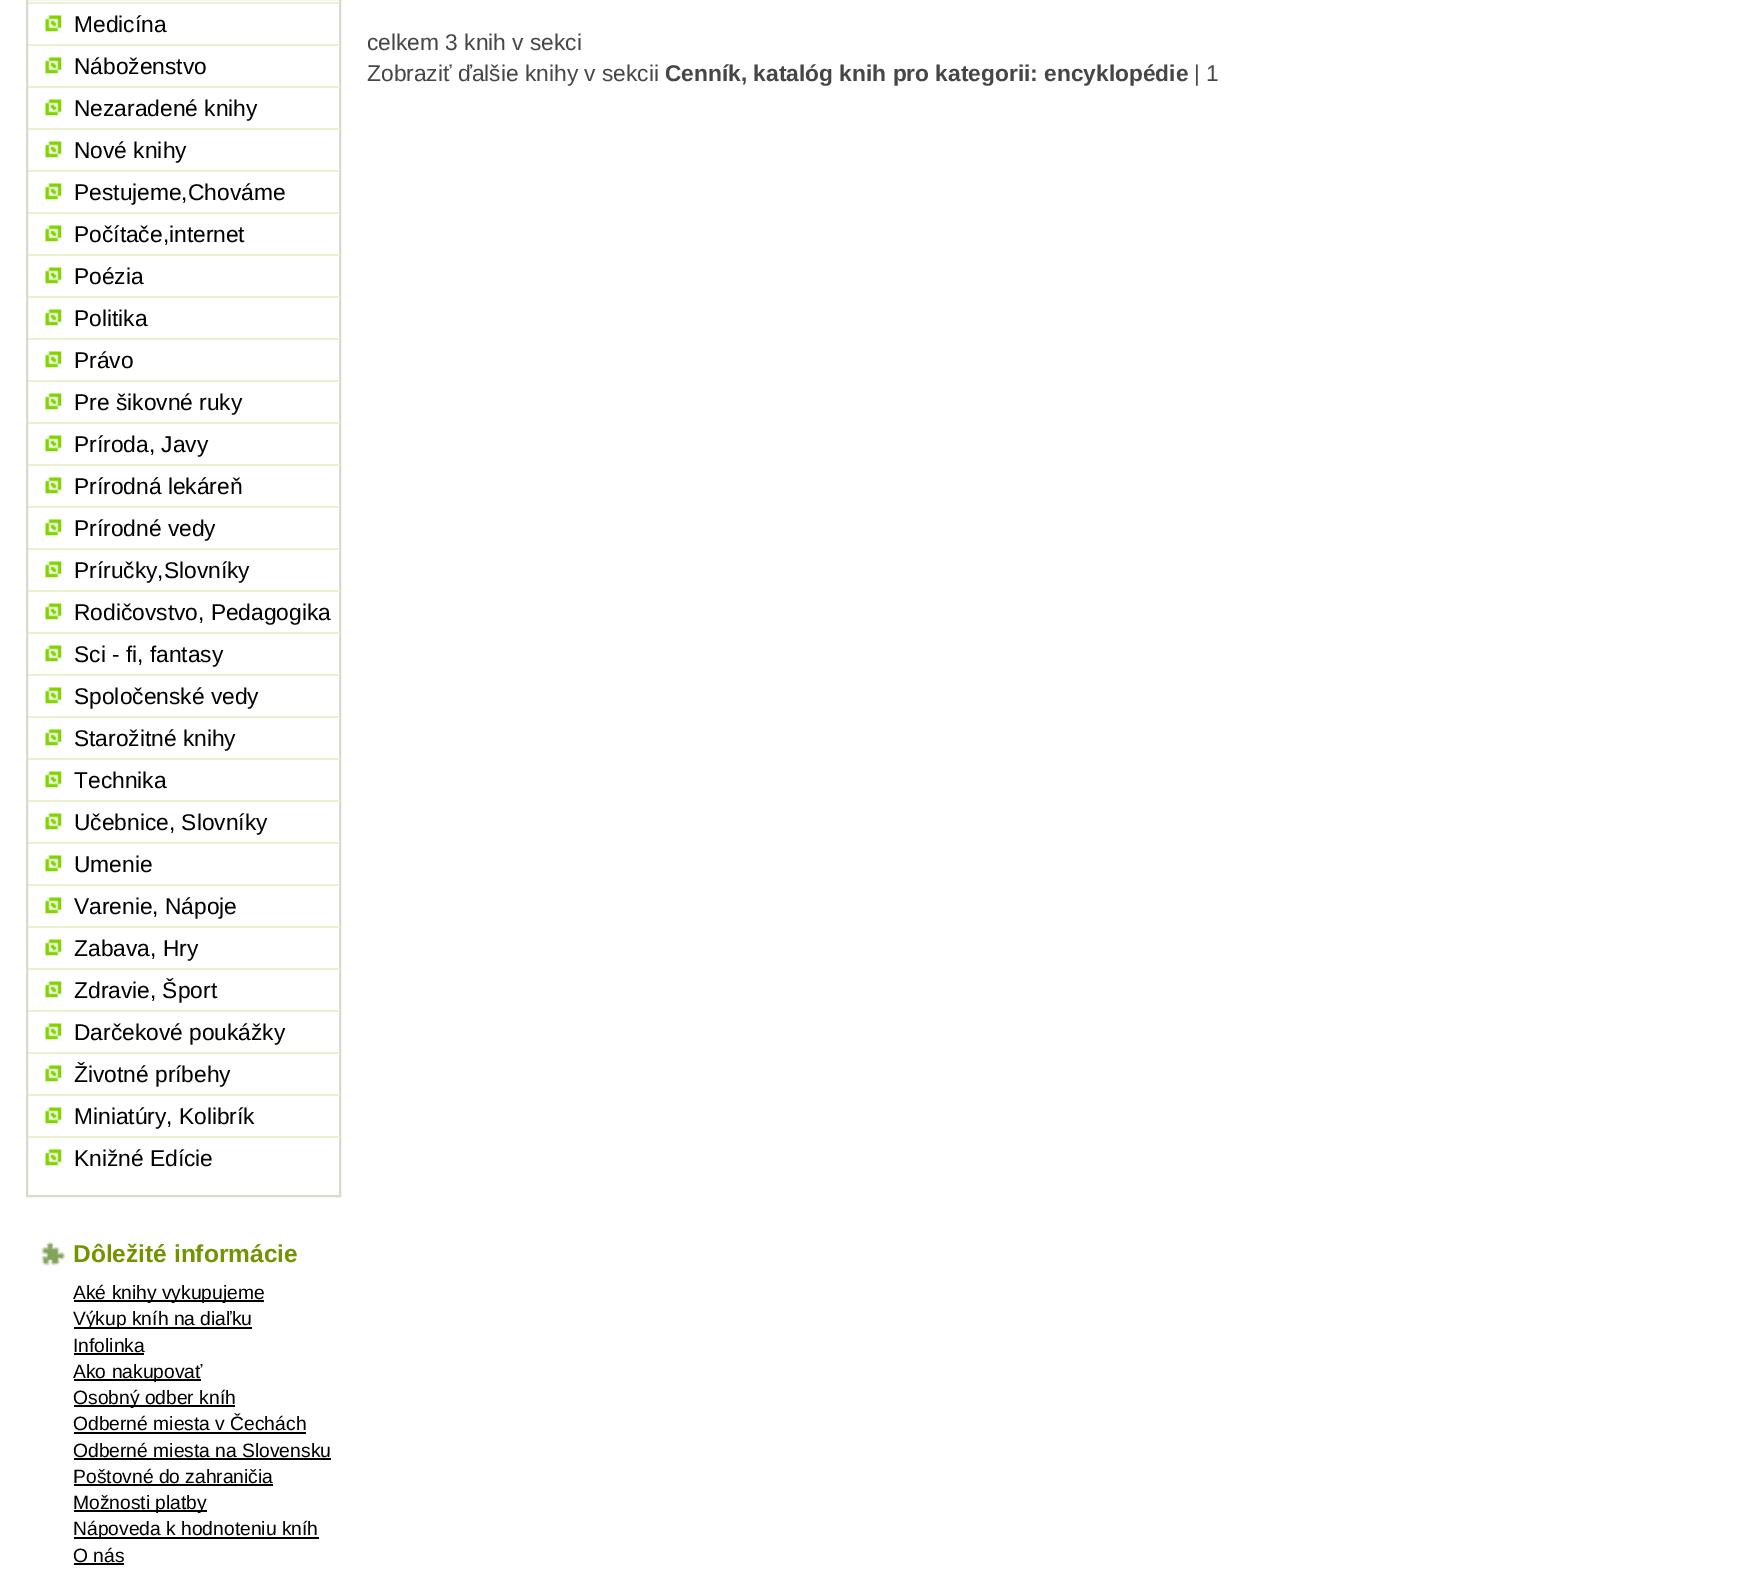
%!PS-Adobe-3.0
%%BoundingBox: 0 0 1748 1583
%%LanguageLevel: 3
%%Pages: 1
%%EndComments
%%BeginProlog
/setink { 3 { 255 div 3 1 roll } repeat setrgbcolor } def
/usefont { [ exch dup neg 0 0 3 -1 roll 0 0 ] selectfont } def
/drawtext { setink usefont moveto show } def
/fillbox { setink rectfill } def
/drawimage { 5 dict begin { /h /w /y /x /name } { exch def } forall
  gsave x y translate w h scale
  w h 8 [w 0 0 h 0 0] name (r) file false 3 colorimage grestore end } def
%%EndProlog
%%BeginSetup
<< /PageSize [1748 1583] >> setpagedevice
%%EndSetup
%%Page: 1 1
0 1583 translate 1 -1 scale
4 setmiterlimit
0 0 1748 1583 255 255 255 fillbox
214 220 204 setink
2 setlinewidth
27 -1 313 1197 rectstroke
(assets/img1.rgb) 45 15 17 17 drawimage
28 2 312 2 233 241 205 fillbox
(Medicína) 74 32 /LiberationSans-Regular 22.75 0 0 0 drawtext
(assets/img1.rgb) 45 57 17 17 drawimage
28 44 312 2 233 241 205 fillbox
(Náboženstvo) 74 74 /LiberationSans-Regular 22.75 0 0 0 drawtext
(assets/img1.rgb) 45 99 17 17 drawimage
28 86 312 2 233 241 205 fillbox
(Nezaradené knihy) 74 116 /LiberationSans-Regular 22.75 0 0 0 drawtext
(assets/img1.rgb) 45 141 17 17 drawimage
28 128 312 2 233 241 205 fillbox
(Nové knihy) 74 158 /LiberationSans-Regular 22.75 0 0 0 drawtext
(assets/img1.rgb) 45 183 17 17 drawimage
28 170 312 2 233 241 205 fillbox
(Pestujeme,Chováme) 74 200 /LiberationSans-Regular 22.75 0 0 0 drawtext
(assets/img1.rgb) 45 225 17 17 drawimage
28 212 312 2 233 241 205 fillbox
(Počítače,internet) 74 242 /LiberationSans-Regular 22.75 0 0 0 drawtext
(assets/img1.rgb) 45 267 17 17 drawimage
28 254 312 2 233 241 205 fillbox
(Poézia) 74 284 /LiberationSans-Regular 22.75 0 0 0 drawtext
(assets/img1.rgb) 45 309 17 17 drawimage
28 296 312 2 233 241 205 fillbox
(Politika) 74 326 /LiberationSans-Regular 22.75 0 0 0 drawtext
(assets/img1.rgb) 45 351 17 17 drawimage
28 338 312 2 233 241 205 fillbox
(Právo) 74 368 /LiberationSans-Regular 22.75 0 0 0 drawtext
(assets/img1.rgb) 45 393 17 17 drawimage
28 380 312 2 233 241 205 fillbox
(Pre šikovné ruky) 74 410 /LiberationSans-Regular 22.75 0 0 0 drawtext
(assets/img1.rgb) 45 435 17 17 drawimage
28 422 312 2 233 241 205 fillbox
(Príroda, Javy) 74 452 /LiberationSans-Regular 22.75 0 0 0 drawtext
(assets/img1.rgb) 45 477 17 17 drawimage
28 464 312 2 233 241 205 fillbox
(Prírodná lekáreň) 74 494 /LiberationSans-Regular 22.75 0 0 0 drawtext
(assets/img1.rgb) 45 519 17 17 drawimage
28 506 312 2 233 241 205 fillbox
(Prírodné vedy) 74 536 /LiberationSans-Regular 22.75 0 0 0 drawtext
(assets/img1.rgb) 45 561 17 17 drawimage
28 548 312 2 233 241 205 fillbox
(Príručky,Slovníky) 74 578 /LiberationSans-Regular 22.75 0 0 0 drawtext
(assets/img1.rgb) 45 603 17 17 drawimage
28 590 312 2 233 241 205 fillbox
(Rodičovstvo, Pedagogika) 74 620 /LiberationSans-Regular 22.75 0 0 0 drawtext
(assets/img1.rgb) 45 645 17 17 drawimage
28 632 312 2 233 241 205 fillbox
(Sci - fi, fantasy) 74 662 /LiberationSans-Regular 22.75 0 0 0 drawtext
(assets/img1.rgb) 45 687 17 17 drawimage
28 674 312 2 233 241 205 fillbox
(Spoločenské vedy) 74 704 /LiberationSans-Regular 22.75 0 0 0 drawtext
(assets/img1.rgb) 45 729 17 17 drawimage
28 716 312 2 233 241 205 fillbox
(Starožitné knihy) 74 746 /LiberationSans-Regular 22.75 0 0 0 drawtext
(assets/img1.rgb) 45 771 17 17 drawimage
28 758 312 2 233 241 205 fillbox
(Technika) 74 788 /LiberationSans-Regular 22.75 0 0 0 drawtext
(assets/img1.rgb) 45 813 17 17 drawimage
28 800 312 2 233 241 205 fillbox
(Učebnice, Slovníky) 74 830 /LiberationSans-Regular 22.75 0 0 0 drawtext
(assets/img1.rgb) 45 855 17 17 drawimage
28 842 312 2 233 241 205 fillbox
(Umenie) 74 872 /LiberationSans-Regular 22.75 0 0 0 drawtext
(assets/img1.rgb) 45 897 17 17 drawimage
28 884 312 2 233 241 205 fillbox
(Varenie, Nápoje) 74 914 /LiberationSans-Regular 22.75 0 0 0 drawtext
(assets/img1.rgb) 45 939 17 17 drawimage
28 926 312 2 233 241 205 fillbox
(Zabava, Hry) 74 956 /LiberationSans-Regular 22.75 0 0 0 drawtext
(assets/img1.rgb) 45 981 17 17 drawimage
28 968 312 2 233 241 205 fillbox
(Zdravie, Šport) 74 998 /LiberationSans-Regular 22.75 0 0 0 drawtext
(assets/img1.rgb) 45 1023 17 17 drawimage
28 1010 312 2 233 241 205 fillbox
(Darčekové poukážky) 74 1040 /LiberationSans-Regular 22.75 0 0 0 drawtext
(assets/img1.rgb) 45 1065 17 17 drawimage
28 1052 312 2 233 241 205 fillbox
(Životné príbehy) 74 1082 /LiberationSans-Regular 22.75 0 0 0 drawtext
(assets/img1.rgb) 45 1107 17 17 drawimage
28 1094 312 2 233 241 205 fillbox
(Miniatúry, Kolibrík) 74 1124 /LiberationSans-Regular 22.75 0 0 0 drawtext
(assets/img1.rgb) 45 1149 17 17 drawimage
28 1136 312 2 233 241 205 fillbox
(Knižné Edície) 74 1166 /LiberationSans-Regular 22.75 0 0 0 drawtext
(assets/img2.rgb) 41 1242 25 24 drawimage
(Dôležité informácie) 73 1262 /LiberationSans-Bold 24.5 113 149 0 drawtext
74 1300 190 2 0 0 0 fillbox
(Aké knihy vykupujeme) 73 1299 /LiberationSans-Regular 19.25 0 0 0 drawtext
74 1327 178 2 0 0 0 fillbox
(Výkup kníh na diaľku) 73 1325 /LiberationSans-Regular 19.25 0 0 0 drawtext
(Infolinka) 73 1352 /LiberationSans-Regular 19.25 0 0 0 drawtext
74 1353 70 2 0 0 0 fillbox
74 1379 127 2 0 0 0 fillbox
(Ako nakupovať) 73 1378 /LiberationSans-Regular 19.25 0 0 0 drawtext
74 1405 161 2 0 0 0 fillbox
(Osobný odber kníh) 73 1404 /LiberationSans-Regular 19.25 0 0 0 drawtext
(Odberné miesta v Čechách) 73 1430 /LiberationSans-Regular 19.25 0 0 0 drawtext
74 1432 232 2 0 0 0 fillbox
(Odberné miesta na Slovensku) 73 1457 /LiberationSans-Regular 19.25 0 0 0 drawtext
74 1458 257 2 0 0 0 fillbox
(Poštovné do zahraničia) 73 1483 /LiberationSans-Regular 19.25 0 0 0 drawtext
74 1484 199 2 0 0 0 fillbox
74 1510 133 2 0 0 0 fillbox
(Možnosti platby) 73 1509 /LiberationSans-Regular 19.25 0 0 0 drawtext
74 1537 245 2 0 0 0 fillbox
(Nápoveda k hodnoteniu kníh) 73 1535 /LiberationSans-Regular 19.25 0 0 0 drawtext
(O nás) 73 1562 /LiberationSans-Regular 19.25 0 0 0 drawtext
74 1563 50 2 0 0 0 fillbox
(celkem 3 knih v sekci) 367 50 /LiberationSans-Regular 22.75 70 70 70 drawtext
(Zobraziť ďalšie knihy v sekcii) 367 81 /LiberationSans-Regular 22.75 70 70 70 drawtext
(Cenník, katalóg knih pro kategorii: encyklopédie) 665 81 /LiberationSans-Bold 22.75 70 70 70 drawtext
(| 1) 1194 81 /LiberationSans-Regular 22.75 70 70 70 drawtext
showpage
%%EOF
